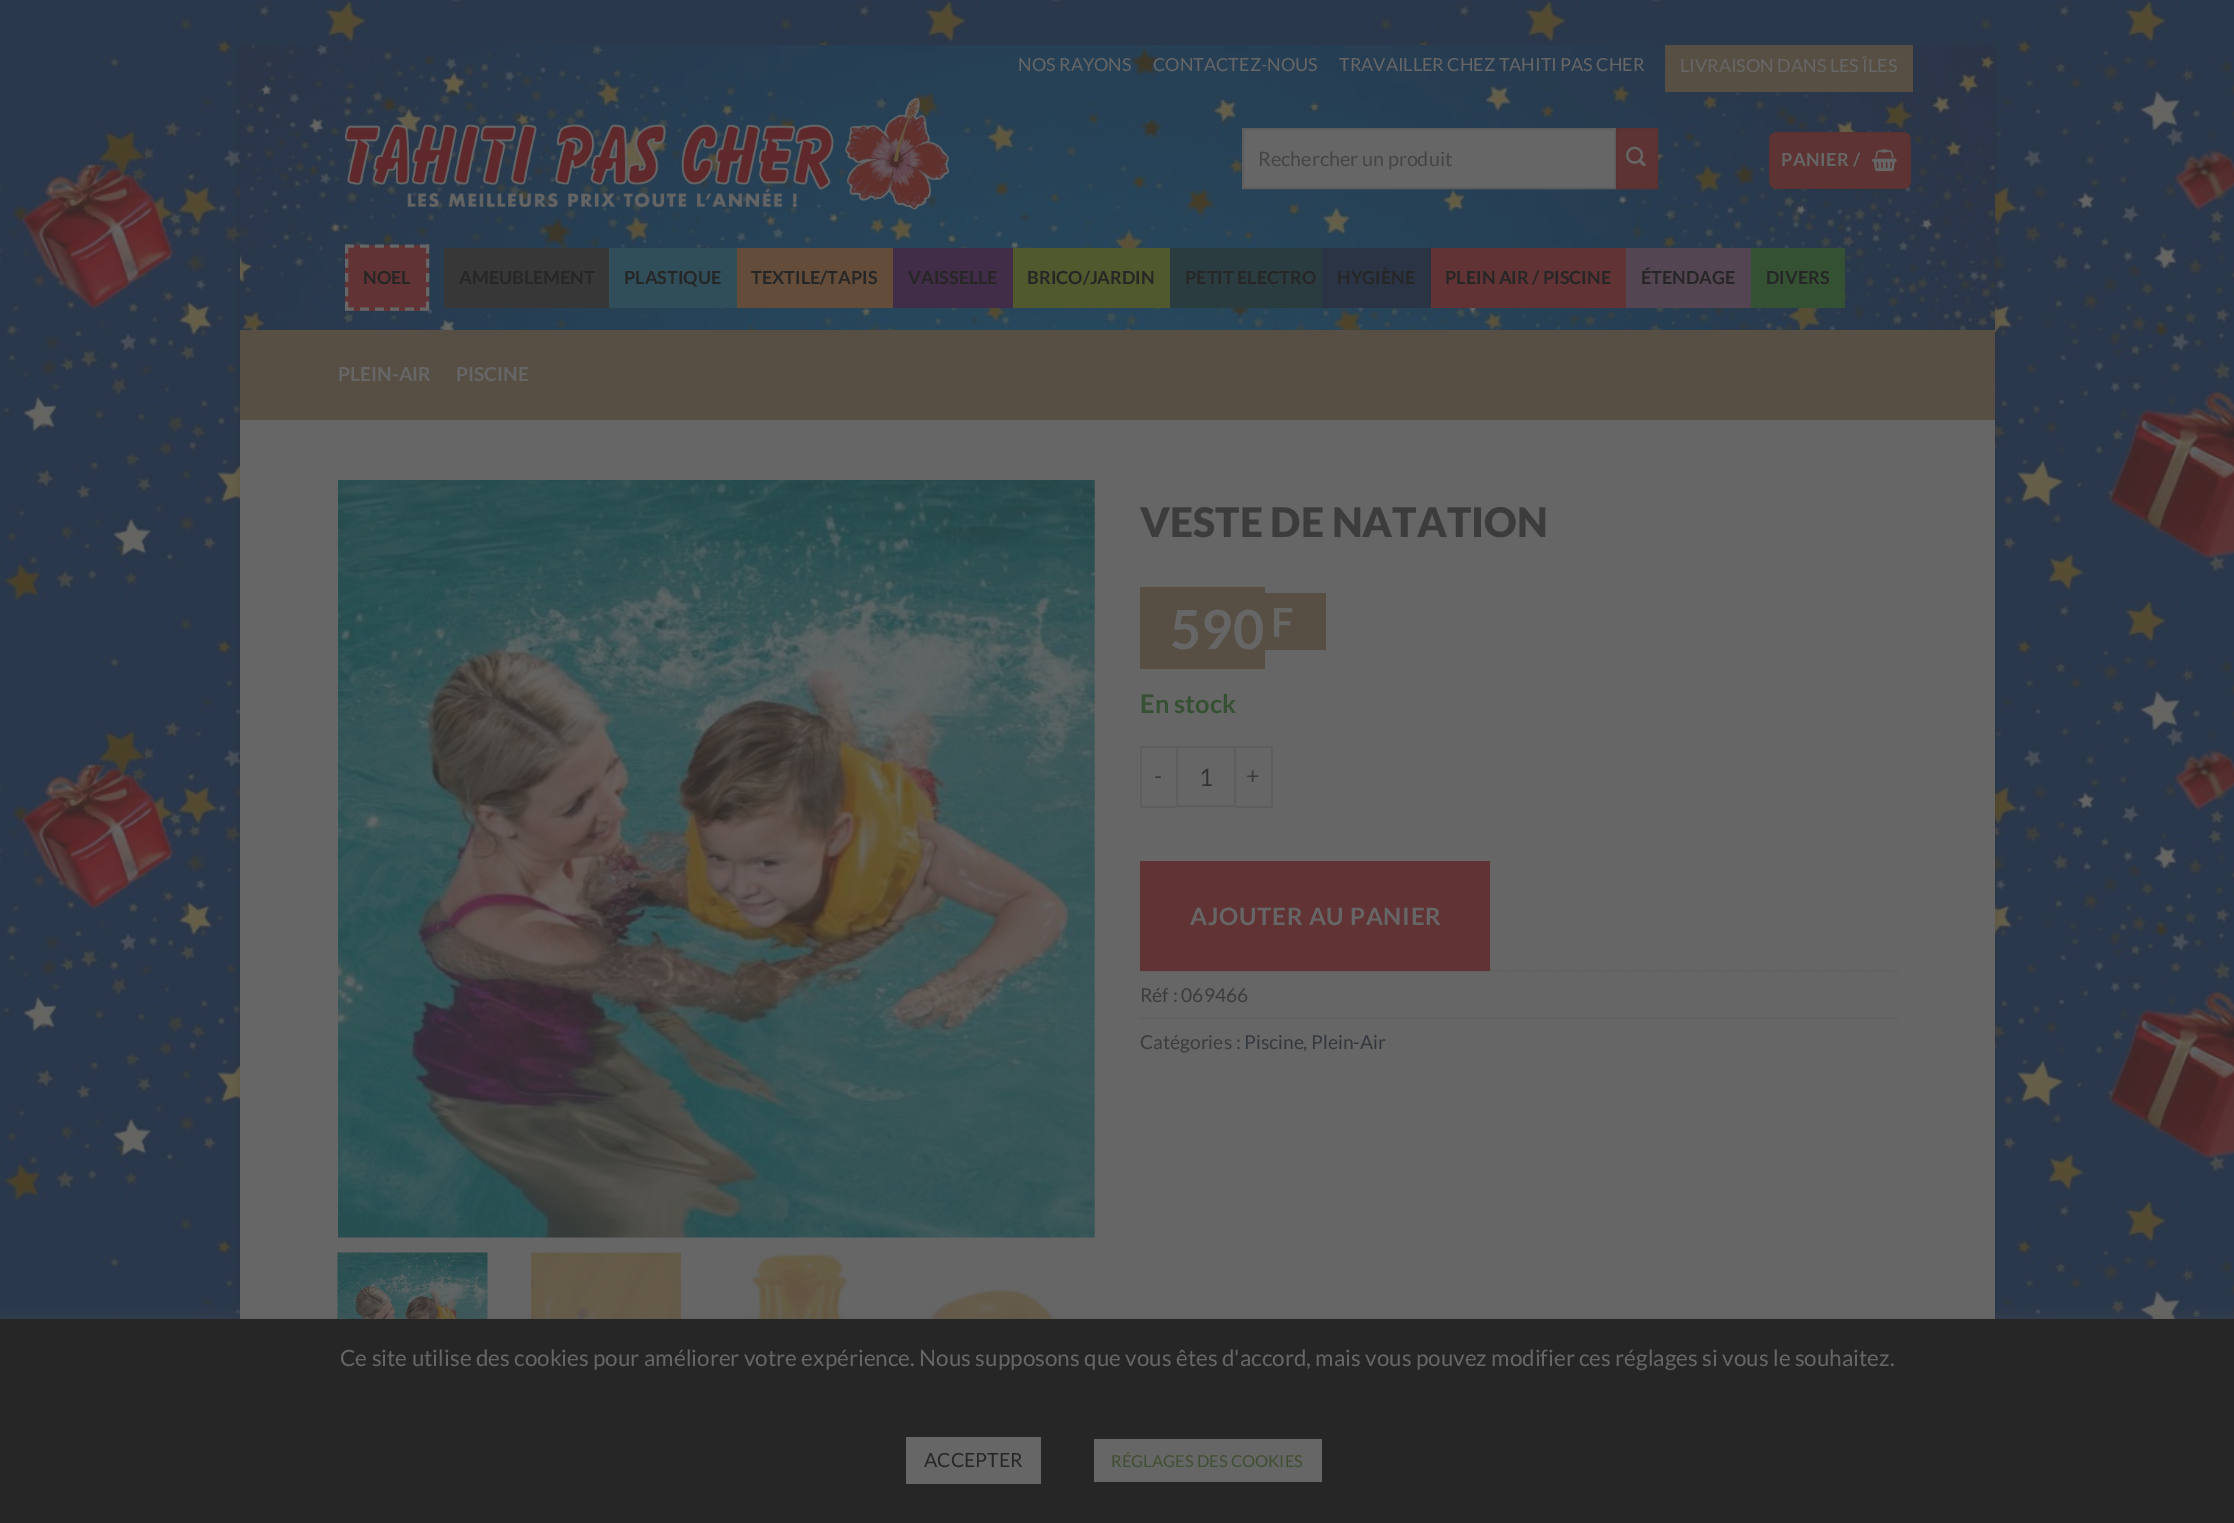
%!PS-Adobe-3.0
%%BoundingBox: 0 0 2234 1523
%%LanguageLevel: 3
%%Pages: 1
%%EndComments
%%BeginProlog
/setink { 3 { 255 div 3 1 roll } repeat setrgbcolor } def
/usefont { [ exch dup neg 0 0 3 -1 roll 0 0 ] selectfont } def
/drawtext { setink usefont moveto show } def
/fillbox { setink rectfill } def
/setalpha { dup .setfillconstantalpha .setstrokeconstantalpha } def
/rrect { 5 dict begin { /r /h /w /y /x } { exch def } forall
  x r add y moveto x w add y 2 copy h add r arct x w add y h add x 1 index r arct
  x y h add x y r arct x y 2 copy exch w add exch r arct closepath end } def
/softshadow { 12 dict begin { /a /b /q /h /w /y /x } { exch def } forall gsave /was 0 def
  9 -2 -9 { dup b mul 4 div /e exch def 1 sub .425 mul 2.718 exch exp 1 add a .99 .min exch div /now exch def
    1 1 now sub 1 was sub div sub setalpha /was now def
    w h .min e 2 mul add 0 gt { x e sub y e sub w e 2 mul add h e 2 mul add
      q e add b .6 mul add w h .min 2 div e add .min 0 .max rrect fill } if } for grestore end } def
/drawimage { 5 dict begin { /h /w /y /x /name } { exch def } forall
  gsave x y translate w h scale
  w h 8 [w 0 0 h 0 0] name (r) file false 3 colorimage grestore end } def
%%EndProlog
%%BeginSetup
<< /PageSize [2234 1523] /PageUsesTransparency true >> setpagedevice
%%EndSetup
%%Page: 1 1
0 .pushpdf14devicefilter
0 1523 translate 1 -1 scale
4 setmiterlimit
0 0 2234 1523 255 255 255 fillbox
(assets/img1.rgb) 0 0 2234 1319 drawimage
38 38 38 setink
240 50 1755 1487 0 4.5 0.23 softshadow
240 420 1755 899 102 102 102 fillbox
(assets/img2.rgb) 240 45 1755 285 drawimage
(NOS RAYONS) 1018 71 /Lato-Regular 18 102 102 102 drawtext
(CONTACTEZ-NOUS) 1153 71 /Lato-Regular 18 102 102 102 drawtext
(TRAVAILLER CHEZ TAHITI PAS CHER) 1339 71 /Lato-Regular 18 102 102 102 drawtext
1665 45 248 47 87 79 68 fillbox
(LIVRAISON DANS LES ÎLES) 1680 72 /Lato-Regular 18 102 102 102 drawtext
(assets/img3.rgb) 345 98 605 112 drawimage
1243 129 moveto 1615 129 lineto 1615 188 lineto 1243 188 lineto closepath gsave fill grestore
94 94 94 setink
2 setlinewidth
stroke
(Rechercher un produit) 1258 166 /Lato-Regular 19.75 68 68 68 drawtext
94 51 51 setink
1617 129 moveto 1657 129 lineto 1657 188 lineto 1617 188 lineto closepath gsave fill grestore
91 50 50 setink
stroke
(assets/img4.rgb) 1626 146 20 21 drawimage
94 51 51 setink
1769 132 142 57 8 rrect fill
0.05 setalpha
38 38 38 setink
1770 133 140 55 rectstroke
/Lato-Bold 18 usefont
1 setalpha
102 102 102 setink
1781 166 moveto 0.5 0 (PANIER /) ashow
(assets/img5.rgb) 1872 149 25 23 drawimage
345 245 84 66 98 51 52 fillbox
102 102 102 setink
3 setlinewidth
[9 6] 0 setdash
345 246 moveto 429 246 lineto stroke
[9 5.25] 0 setdash
427.5 244.5 moveto 427.5 310.5 lineto stroke
[9 6] 0 setdash
345 309 moveto 429 309 lineto stroke
[9 5.25] 0 setdash
346.5 244.5 moveto 346.5 310.5 lineto stroke
(NOEL) 363 284 /Lato-Bold 18 38 38 38 drawtext
444 248 165 60 55 55 55 fillbox
(AMEUBLEMENT) 459 284 /Lato-Bold 18 38 38 38 drawtext
609 248 128 60 47 78 89 fillbox
(PLASTIQUE) 624 284 /Lato-Bold 18 38 38 38 drawtext
737 248 156 60 99 76 57 fillbox
(TEXTILE/TAPIS) 751 284 /Lato-Bold 18 38 38 38 drawtext
893 248 120 60 65 45 71 fillbox
(VAISSELLE) 908 284 /Lato-Bold 18 38 38 38 drawtext
1013 248 157 60 80 89 45 fillbox
(BRICO/JARDIN) 1027 284 /Lato-Bold 18 38 38 38 drawtext
1170 248 152 60 43 60 65 fillbox
(PETIT ELECTRO) 1185 284 /Lato-Bold 18 38 38 38 drawtext
1322 248 109 60 43 52 69 fillbox
(HYGIÈNE) 1337 284 /Lato-Bold 18 38 38 38 drawtext
1431 248 195 60 98 51 52 fillbox
(PLEIN AIR / PISCINE) 1445 284 /Lato-Bold 18 38 38 38 drawtext
1626 248 125 60 84 69 82 fillbox
(ÉTENDAGE) 1641 284 /Lato-Bold 18 38 38 38 drawtext
1751 248 94 60 53 81 51 fillbox
(DIVERS) 1766 284 /Lato-Bold 18 38 38 38 drawtext
240 330 1755 90 87 79 68 fillbox
(PLEIN-AIR) 338 381 /Lato-Bold 19.25 102 102 102 drawtext
(PISCINE) 456 381 /Lato-Bold 19.25 102 102 102 drawtext
(assets/img6.rgb) 338 480 757 758 drawimage
(assets/img7.rgb) 337 1252 151 67 drawimage
(assets/img8.rgb) 531 1252 150 67 drawimage
(assets/img9.rgb) 737 1252 120 67 drawimage
(assets/img10.rgb) 928 1286 133 33 drawimage
(VESTE DE NATATION) 1140 537 /Lato-Black 40.75 60 60 60 drawtext
1140 587 125 82 87 79 68 fillbox
1265 593 61 57 87 79 68 fillbox
(590) 1170 649 /Lato-Bold 54 102 102 102 drawtext
(F) 1271 637 /Lato-Bold 40 102 102 102 drawtext
(En stock) 1140 713 /Lato-Bold 25.5 53 80 51 drawtext
1140 746 36 2 94 94 94 fillbox
1140 806 36 2 94 94 94 fillbox
1140 746 2 61 94 94 94 fillbox
/Lato-Regular 23 usefont
60 60 60 setink
1154 784 moveto 1 0 (-) ashow
94 94 94 setink
2 setlinewidth
[] 0 setdash
1177 747 58 59 rectstroke
(1) 1199 786 /Lato-Regular 24 51 51 51 drawtext
1236 746 36 2 94 94 94 fillbox
1271 746 2 61 94 94 94 fillbox
1236 806 36 2 94 94 94 fillbox
/Lato-Regular 23 usefont
60 60 60 setink
1246 784 moveto 1 0 (+) ashow
94 94 94 setink
1.5 setlinewidth
[1.5 1.5] 0 setdash
1140 971 moveto 1897.5 971 lineto stroke
1140 861 350 110 98 51 52 fillbox
/Lato-Bold 24 usefont
102 102 102 setink
1190 925 moveto 0.75 0 (AJOUTER AU PANIER) ashow
(Réf : 069466) 1140 1002 /Lato-Regular 19.25 60 60 60 drawtext
94 94 94 setink
1140 1018 moveto 1897.5 1018 lineto stroke
(Catégories :) 1140 1049 /Lato-Regular 19.25 60 60 60 drawtext
(Piscine) 1244 1049 /Lato-Regular 19.25 51 56 63 drawtext
(,) 1303 1049 /Lato-Regular 19.25 60 60 60 drawtext
(Plein-Air) 1311 1049 /Lato-Regular 19.25 51 56 63 drawtext
81 81 81 setink
0 1317 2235 206 0 7.5 0.3 softshadow
0 1319 2234 204 38 38 38 fillbox
(Ce site utilise des cookies pour améliorer votre expérience. Nous supposons que vous êtes d'accord, mais vous pouvez modifier ces réglages si vous le souhaitez.) 340 1366 /Lato-Regular 22.5 102 102 102 drawtext
906 1437 135 47 102 102 102 fillbox
(ACCEPTER) 924 1467 /Lato-Regular 19.5 38 38 38 drawtext
1094 1439 228 43 102 102 102 fillbox
(RÉGLAGES DES COOKIES) 1111 1467 /Lato-Regular 16.5 63 79 49 drawtext
.poppdf14devicefilter showpage
%%EOF
